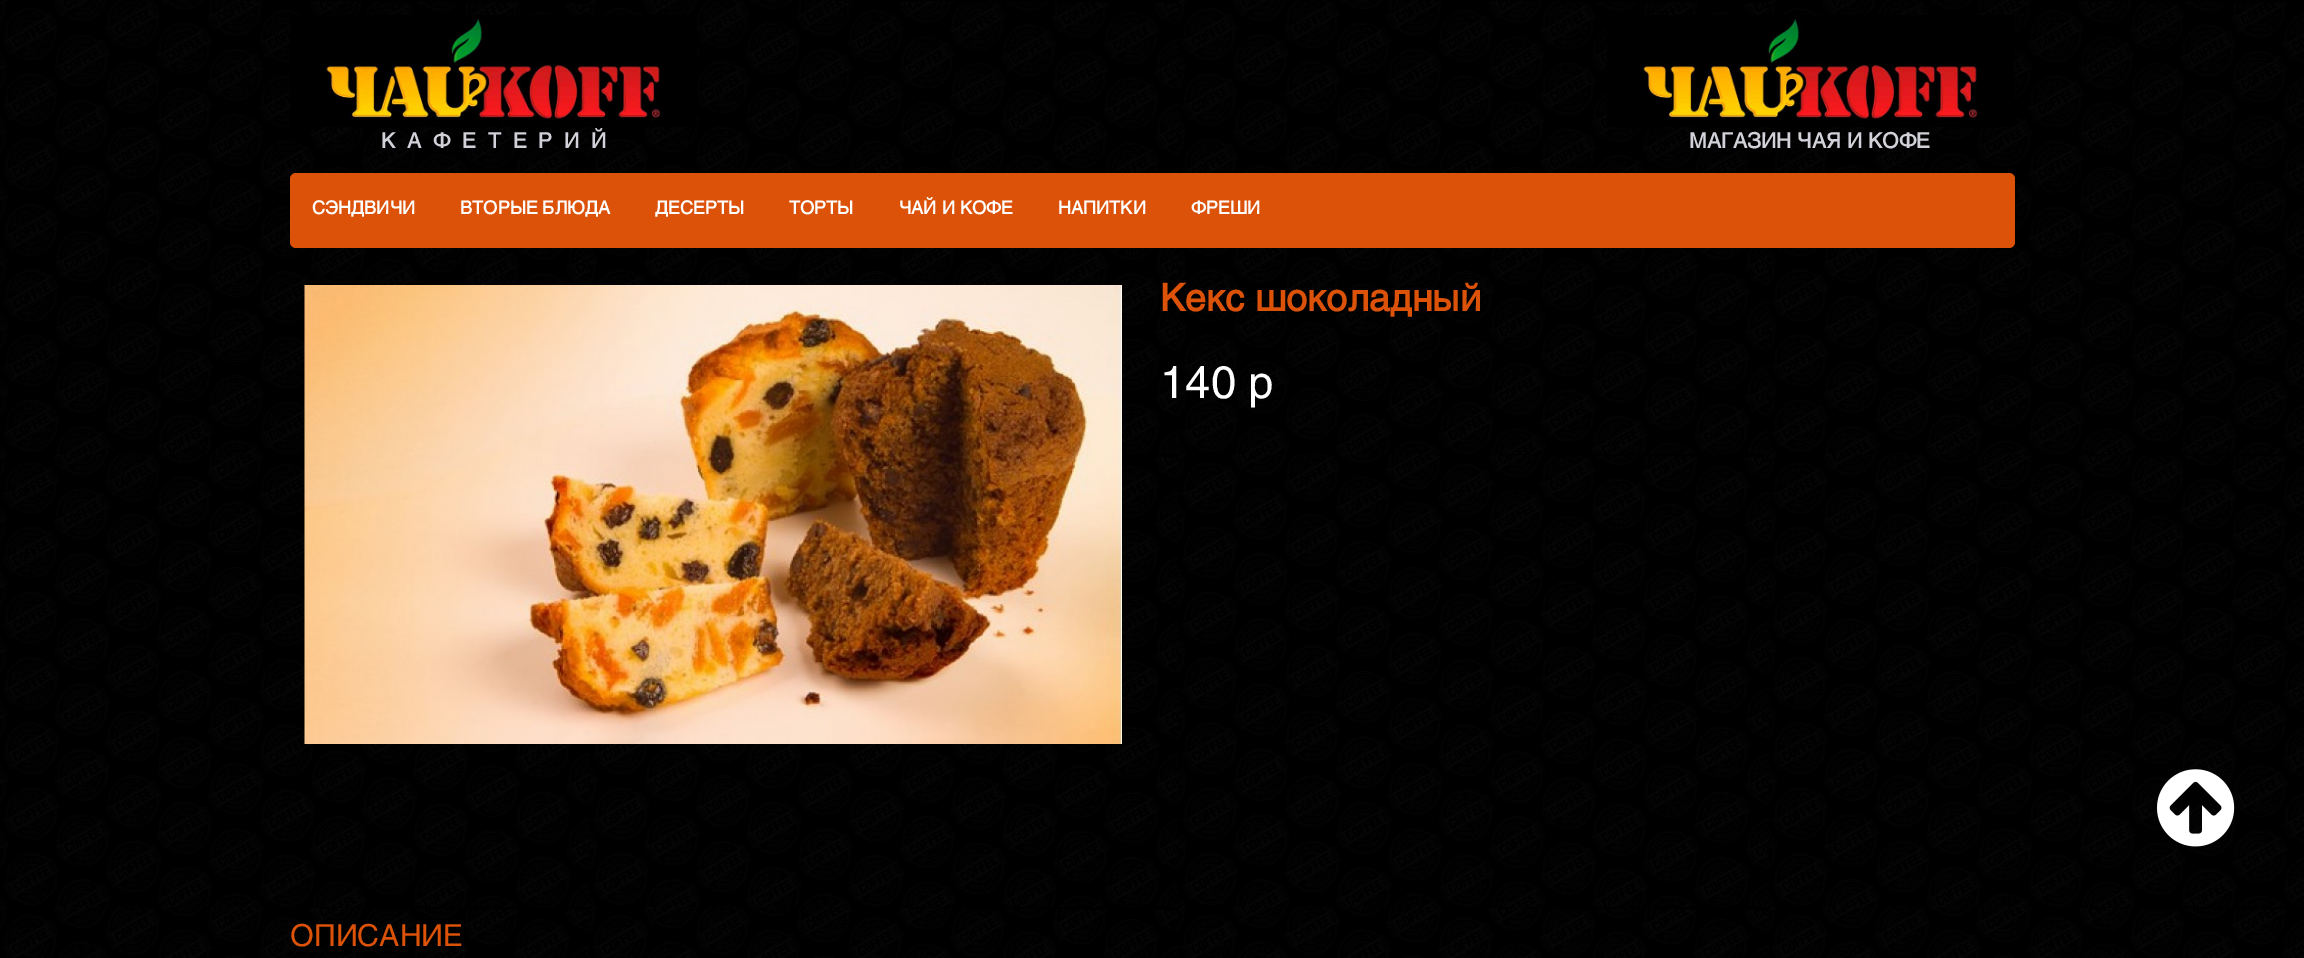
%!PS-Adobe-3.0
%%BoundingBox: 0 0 2304 958
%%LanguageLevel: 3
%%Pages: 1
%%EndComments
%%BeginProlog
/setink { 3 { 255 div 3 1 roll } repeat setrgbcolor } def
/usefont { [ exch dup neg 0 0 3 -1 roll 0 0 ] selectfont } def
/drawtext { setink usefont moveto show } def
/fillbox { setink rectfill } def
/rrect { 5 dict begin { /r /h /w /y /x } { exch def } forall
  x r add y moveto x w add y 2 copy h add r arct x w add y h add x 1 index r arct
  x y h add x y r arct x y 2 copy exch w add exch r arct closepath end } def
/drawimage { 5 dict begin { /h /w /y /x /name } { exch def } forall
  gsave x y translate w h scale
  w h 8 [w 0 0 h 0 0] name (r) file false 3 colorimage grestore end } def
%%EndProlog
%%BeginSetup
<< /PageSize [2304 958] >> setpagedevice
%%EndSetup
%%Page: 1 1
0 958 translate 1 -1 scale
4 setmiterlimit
0 0 2304 958 255 255 255 fillbox
(assets/img1.rgb) 0 0 2304 958 drawimage
(assets/img2.rgb) 0 0 2304 958 drawimage
(assets/img3.rgb) 290 15 407 112 drawimage
(К  А  Ф  Е  Т  Е  Р  И  Й) 381 148 /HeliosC-Bold 21 209 209 217 drawtext
(assets/img4.rgb) 1607 15 407 112 drawimage
(МАГАЗИН ЧАЯ И КОФЕ) 1689 148 /HeliosC-Bold 21 209 209 217 drawtext
220 82 9 setink
290 173 1725 75 6 rrect fill
(СЭНДВИЧИ) 312 214 /HeliosC-Bold 18 255 255 255 drawtext
(ВТОРЫЕ БЛЮДА) 460 214 /HeliosC-Bold 18 255 255 255 drawtext
(ДЕСЕРТЫ) 655 214 /HeliosC-Bold 18 255 255 255 drawtext
(ТОРТЫ) 789 214 /HeliosC-Bold 18 255 255 255 drawtext
(ЧАЙ И КОФЕ) 899 214 /HeliosC-Bold 18 255 255 255 drawtext
(НАПИТКИ) 1058 214 /HeliosC-Bold 18 255 255 255 drawtext
(ФРЕШИ) 1191 214 /HeliosC-Bold 18 255 255 255 drawtext
(assets/img5.rgb) 304 285 818 459 drawimage
(Кекс шоколадный) 1160 311 /HeliosC-Bold 37.5 220 82 9 drawtext
(140 p) 1160 398 /HeliosC-Regular 45 255 255 255 drawtext
(ОПИСАНИЕ) 290 946 /HeliosC-Regular 30 220 82 9 drawtext
(assets/img6.rgb) 2157 769 78 78 drawimage
showpage
%%EOF
